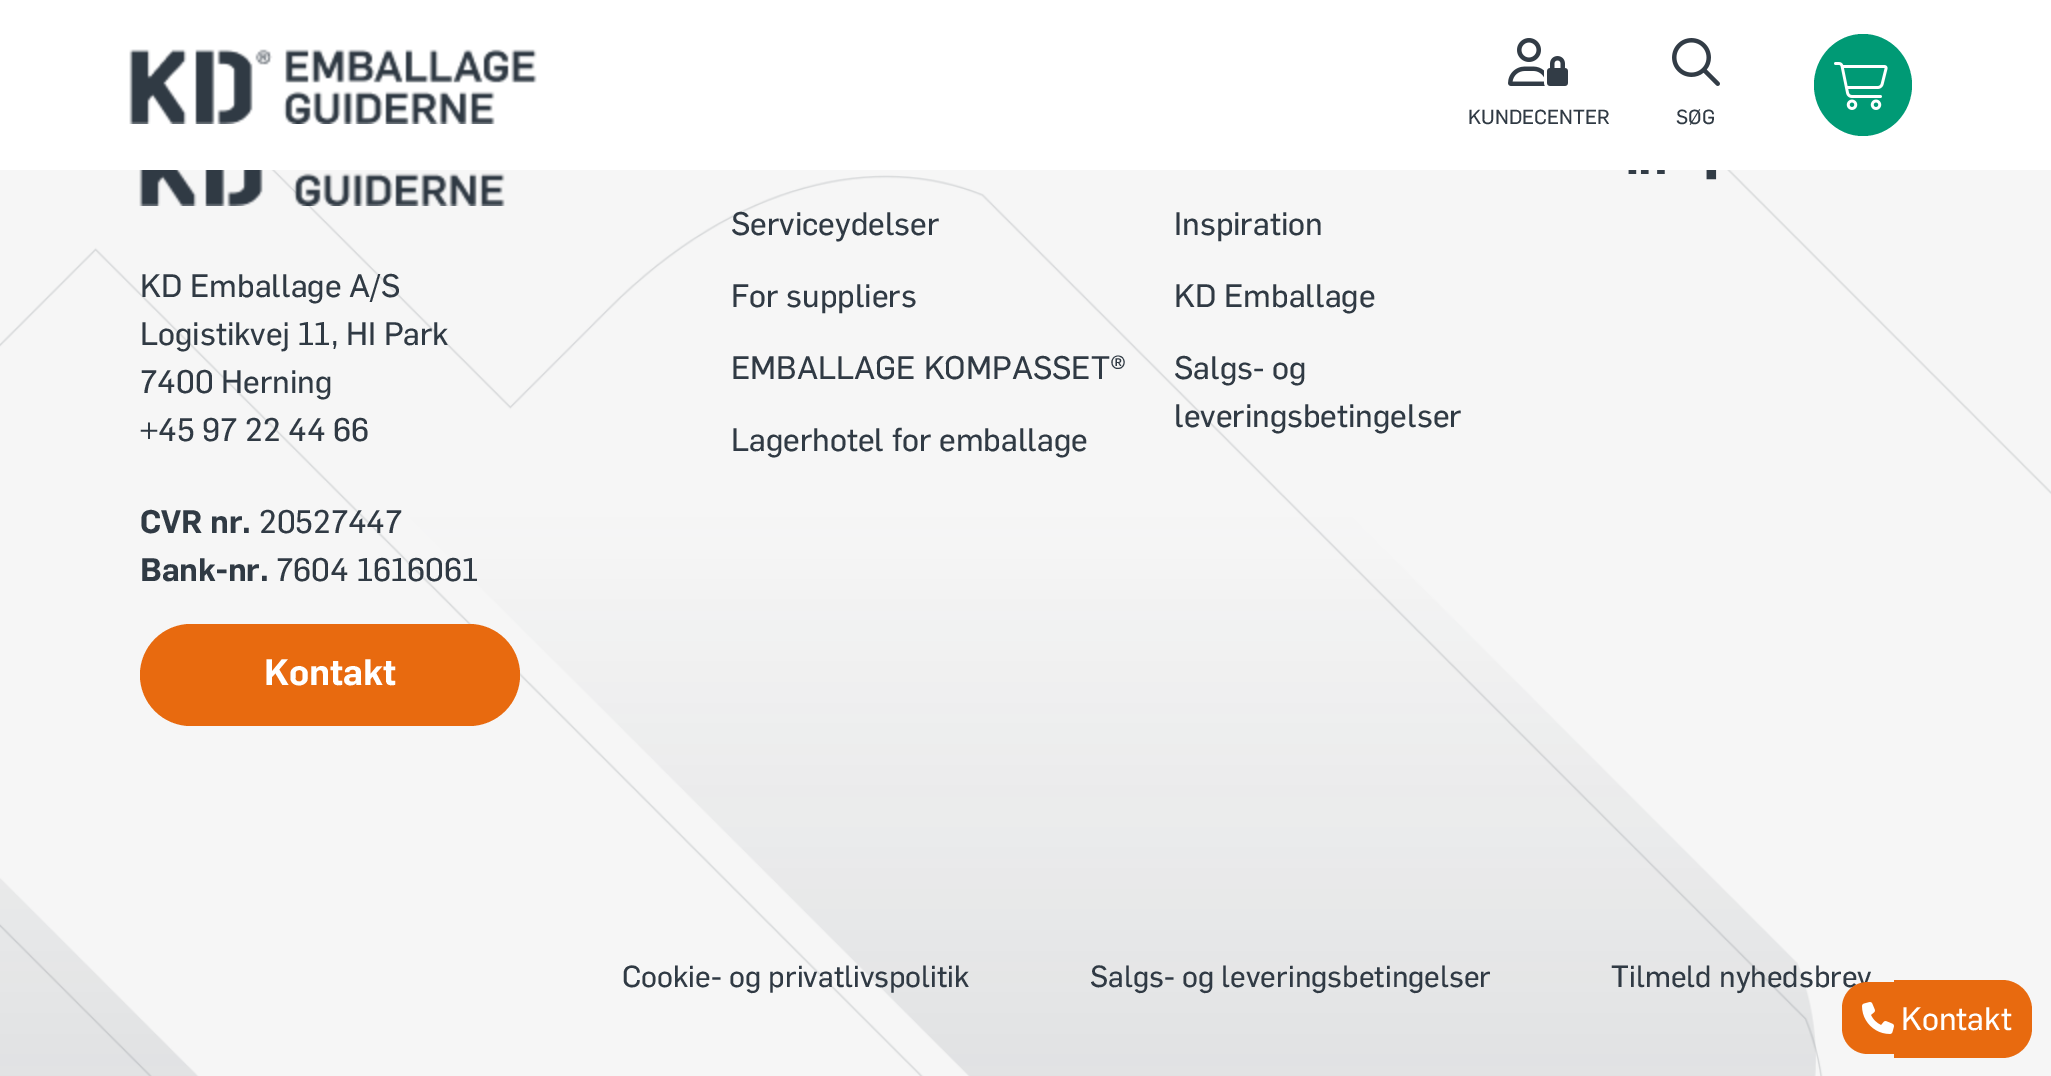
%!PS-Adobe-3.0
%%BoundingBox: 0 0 2051 1076
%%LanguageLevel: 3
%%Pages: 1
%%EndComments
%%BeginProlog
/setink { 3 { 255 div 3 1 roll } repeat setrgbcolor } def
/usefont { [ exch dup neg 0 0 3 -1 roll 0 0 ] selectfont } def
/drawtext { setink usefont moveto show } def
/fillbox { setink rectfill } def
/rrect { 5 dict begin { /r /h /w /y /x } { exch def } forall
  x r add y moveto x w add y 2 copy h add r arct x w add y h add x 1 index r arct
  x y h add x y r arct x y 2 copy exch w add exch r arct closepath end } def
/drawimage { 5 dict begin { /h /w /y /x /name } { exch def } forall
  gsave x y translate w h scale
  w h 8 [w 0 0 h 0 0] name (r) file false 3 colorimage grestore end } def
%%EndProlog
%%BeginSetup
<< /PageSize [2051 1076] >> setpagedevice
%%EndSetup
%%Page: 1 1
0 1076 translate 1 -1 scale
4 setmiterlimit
0 0 2051 1076 255 255 255 fillbox
(assets/img1.rgb) 129 49 408 75 drawimage
(assets/img2.rgb) 1508 38 60 48 drawimage
(KUNDECENTER) 1468 124 /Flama-SemiBold 20 48 58 68 drawtext
(assets/img3.rgb) 1672 38 48 48 drawimage
(SØG) 1676 124 /Flama-SemiBold 20 48 58 68 drawtext
0 154 117 setink
1863 34 moveto 1890 34 1912 57 1912 85 curveto 1912 113 1890 136 1863 136 curveto 1836 136 1814 113 1814 85 curveto 1814 57 1836 34 1863 34 curveto closepath fill
(assets/img4.rgb) 1834 62 54 48 drawimage
(assets/img5.rgb) 0 170 2051 906 drawimage
(assets/img6.rgb) 1628 170 37 4 drawimage
(assets/img7.rgb) 1706 170 11 10 drawimage
(assets/img8.rgb) 139 170 366 36 drawimage
(KD Emballage A/S) 140 297 /Flama-SemiBold 32 48 58 68 drawtext
(Logistikvej 11, HI Park) 140 345 /Flama-SemiBold 32 48 58 68 drawtext
(7400 Herning) 140 393 /Flama-SemiBold 32 48 58 68 drawtext
(+45 97 22 44 66) 140 441 /Flama-SemiBold 32 48 58 68 drawtext
(CVR nr.) 140 533 /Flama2-SemiBold 32 48 58 68 drawtext
(20527447) 259 533 /Flama-SemiBold 32 48 58 68 drawtext
(Bank-nr.) 140 581 /Flama2-SemiBold 32 48 58 68 drawtext
(7604 1616061) 276 581 /Flama-SemiBold 32 48 58 68 drawtext
232 106 15 setink
140 624 380 102 51 rrect fill
(Kontakt) 264 685 /Flama2-SemiBold 36 255 255 255 drawtext
(Serviceydelser) 731 235 /Flama-SemiBold 32 48 58 68 drawtext
(For suppliers) 731 307 /Flama-SemiBold 32 48 58 68 drawtext
(EMBALLAGE KOMPASSET®) 731 379 /Flama-SemiBold 32 48 58 68 drawtext
(Lagerhotel for emballage) 731 451 /Flama-SemiBold 32 48 58 68 drawtext
(Inspiration) 1174 235 /Flama-SemiBold 32 48 58 68 drawtext
(KD Emballage) 1174 307 /Flama-SemiBold 32 48 58 68 drawtext
(Salgs- og) 1174 379 /Flama-SemiBold 32 48 58 68 drawtext
(leveringsbetingelser) 1174 427 /Flama-SemiBold 32 48 58 68 drawtext
(Cookie- og privatlivspolitik) 622 987 /Flama-SemiBold 30 48 58 68 drawtext
(Salgs- og leveringsbetingelser) 1090 987 /Flama-SemiBold 30 48 58 68 drawtext
(Tilmeld nyhedsbrev) 1611 987 /Flama-SemiBold 30 48 58 68 drawtext
232 106 15 setink
1868 982 moveto 1894 982 lineto 1894 1054 lineto 1868 1054 lineto 1853.5 1054 1842 1042.5 1842 1028 curveto 1842 1008 lineto 1842 993.5 1853.5 982 1868 982 curveto closepath fill
1894 980 moveto 2002 980 lineto 2018.5 980 2032 993.5 2032 1010 curveto 2032 1028 lineto 2032 1044.5 2018.5 1058 2002 1058 curveto 1894 1058 lineto closepath fill
(assets/img9.rgb) 1862 1002 32 32 drawimage
(Kontakt) 1901 1030 /Flama-SemiBold 32 255 255 255 drawtext
showpage
%%EOF
